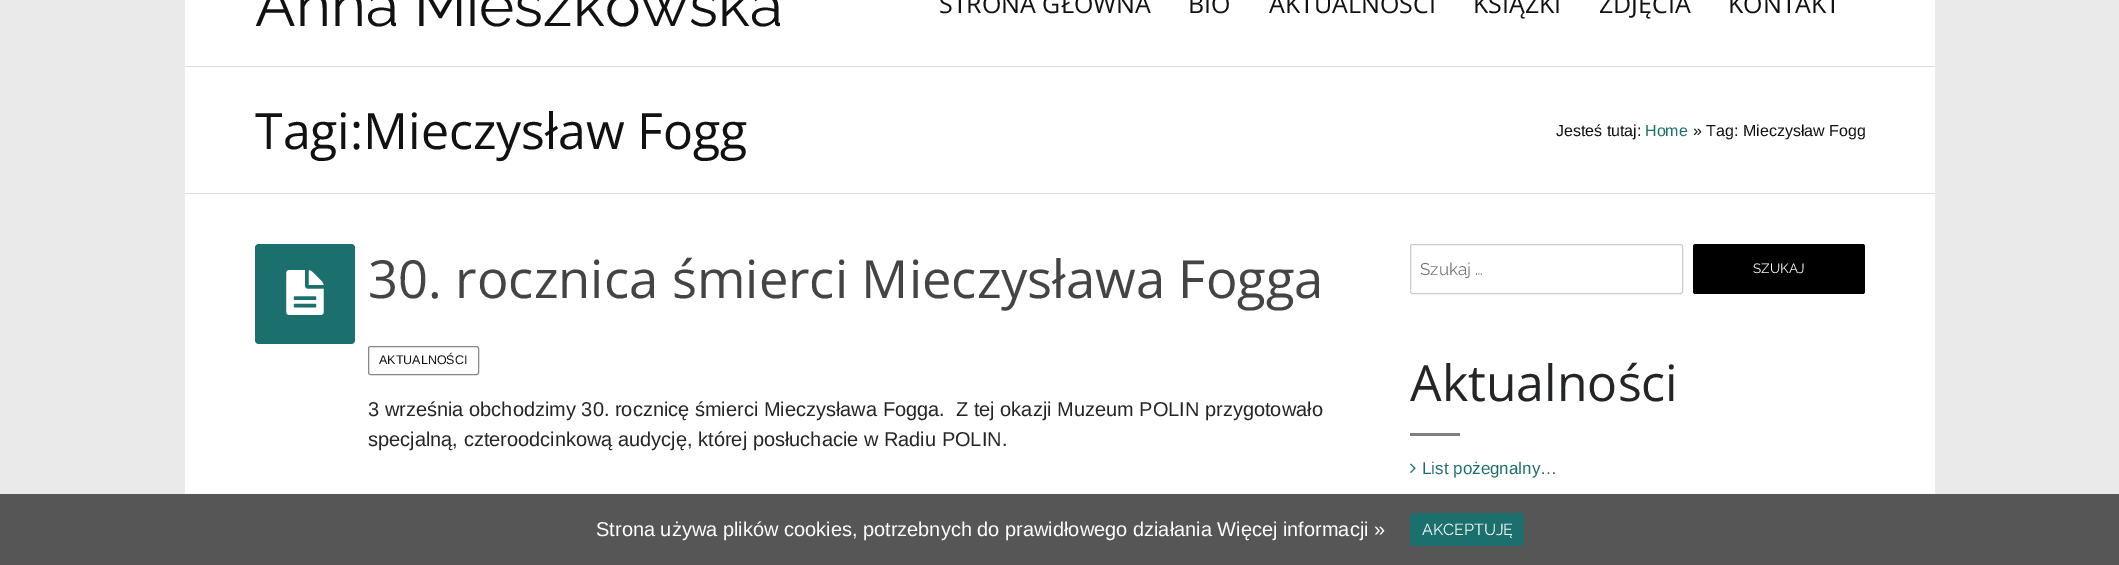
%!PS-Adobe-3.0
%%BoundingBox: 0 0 2119 565
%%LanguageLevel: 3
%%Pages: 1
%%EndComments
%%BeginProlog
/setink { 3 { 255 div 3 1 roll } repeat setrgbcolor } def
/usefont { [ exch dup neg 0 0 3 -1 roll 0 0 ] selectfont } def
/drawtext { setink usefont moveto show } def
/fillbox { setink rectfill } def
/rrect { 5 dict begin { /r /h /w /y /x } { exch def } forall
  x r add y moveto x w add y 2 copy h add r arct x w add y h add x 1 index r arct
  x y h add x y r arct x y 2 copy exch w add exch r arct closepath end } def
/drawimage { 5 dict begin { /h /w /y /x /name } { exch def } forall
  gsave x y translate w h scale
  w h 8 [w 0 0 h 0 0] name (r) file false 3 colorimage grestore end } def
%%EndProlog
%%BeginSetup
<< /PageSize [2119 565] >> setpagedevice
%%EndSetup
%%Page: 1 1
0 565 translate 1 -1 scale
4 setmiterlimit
0 0 2119 565 234 234 234 fillbox
185 0 1750 494 255 255 255 fillbox
(Anna Mieszkowska) 255 26 /Raleway-Regular 60 17 17 17 drawtext
(STRONA GŁÓWNA) 939 13 /OpenSans-Regular 25 17 17 17 drawtext
(BIO) 1188 13 /OpenSans-Regular 25 17 17 17 drawtext
(AKTUALNOŚCI) 1269 13 /OpenSans-Regular 25 17 17 17 drawtext
(KSIĄŻKI) 1473 13 /OpenSans-Regular 25 17 17 17 drawtext
(ZDJĘCIA) 1599 13 /OpenSans-Regular 25 17 17 17 drawtext
(KONTAKT) 1728 13 /OpenSans-Regular 25 17 17 17 drawtext
185 66 1750 1 222 222 222 fillbox
185 193 1750 1 222 222 222 fillbox
(Tagi:Mieczysław Fogg) 255 149 /OpenSans-Regular 50 17 17 17 drawtext
(Jesteś tutaj:) 1556 136 /LiberationSans-Regular 16 17 17 17 drawtext
(Home) 1645 136 /LiberationSans-Regular 16 27 111 108 drawtext
(» Tag: Mieczysław Fogg) 1693 136 /LiberationSans-Regular 16 17 17 17 drawtext
27 111 108 setink
255 244 100 100 4 rrect fill
(assets/img1.rgb) 286 270 38 45 drawimage
(30. rocznica śmierci Mieczysława Fogga) 368 298 /OpenSans-Regular 52.5 68 68 68 drawtext
136 136 136 setink
368.5 346.5 110 28 2 rrect stroke
(AKTUALNOŚCI) 379 364 /LiberationSans-Regular 12.5 17 17 17 drawtext
(3 września obchodzimy 30. rocznicę śmierci Mieczysława Fogga.  Z tej okazji Muzeum POLIN przygotowało) 368 416 /LiberationSans-Regular 20 35 37 39 drawtext
(specjalną, czteroodcinkową audycję, której posłuchacie w Radiu POLIN.) 368 446 /LiberationSans-Regular 20 35 37 39 drawtext
204 204 204 setink
1410.5 244.5 272 49 2 rrect stroke
(Szukaj …) 1420 275 /Raleway-Regular 17 117 117 117 drawtext
0 0 0 setink
1693 244 172 50 2.5 rrect fill
(SZUKAJ) 1753 273 /Raleway-Regular 13.5 255 255 255 drawtext
(Aktualności) 1410 401 /OpenSans-Regular 50 35 37 39 drawtext
1410 433 50 3 128 128 128 fillbox
(assets/img2.rgb) 1410 463 6 10 drawimage
(List pożegnalny…) 1422 474 /LiberationSans-Regular 17 27 111 108 drawtext
0 494 2119 71 86 86 86 fillbox
(Strona używa plików cookies, potrzebnych do prawidłowego działania Więcej informacji ») 596 536 /LiberationSans-Regular 20 255 255 255 drawtext
27 111 108 setink
1410 513 114 33 4 rrect fill
(AKCEPTUJĘ) 1422 535 /Raleway-Regular 16 255 255 255 drawtext
showpage
%%EOF
